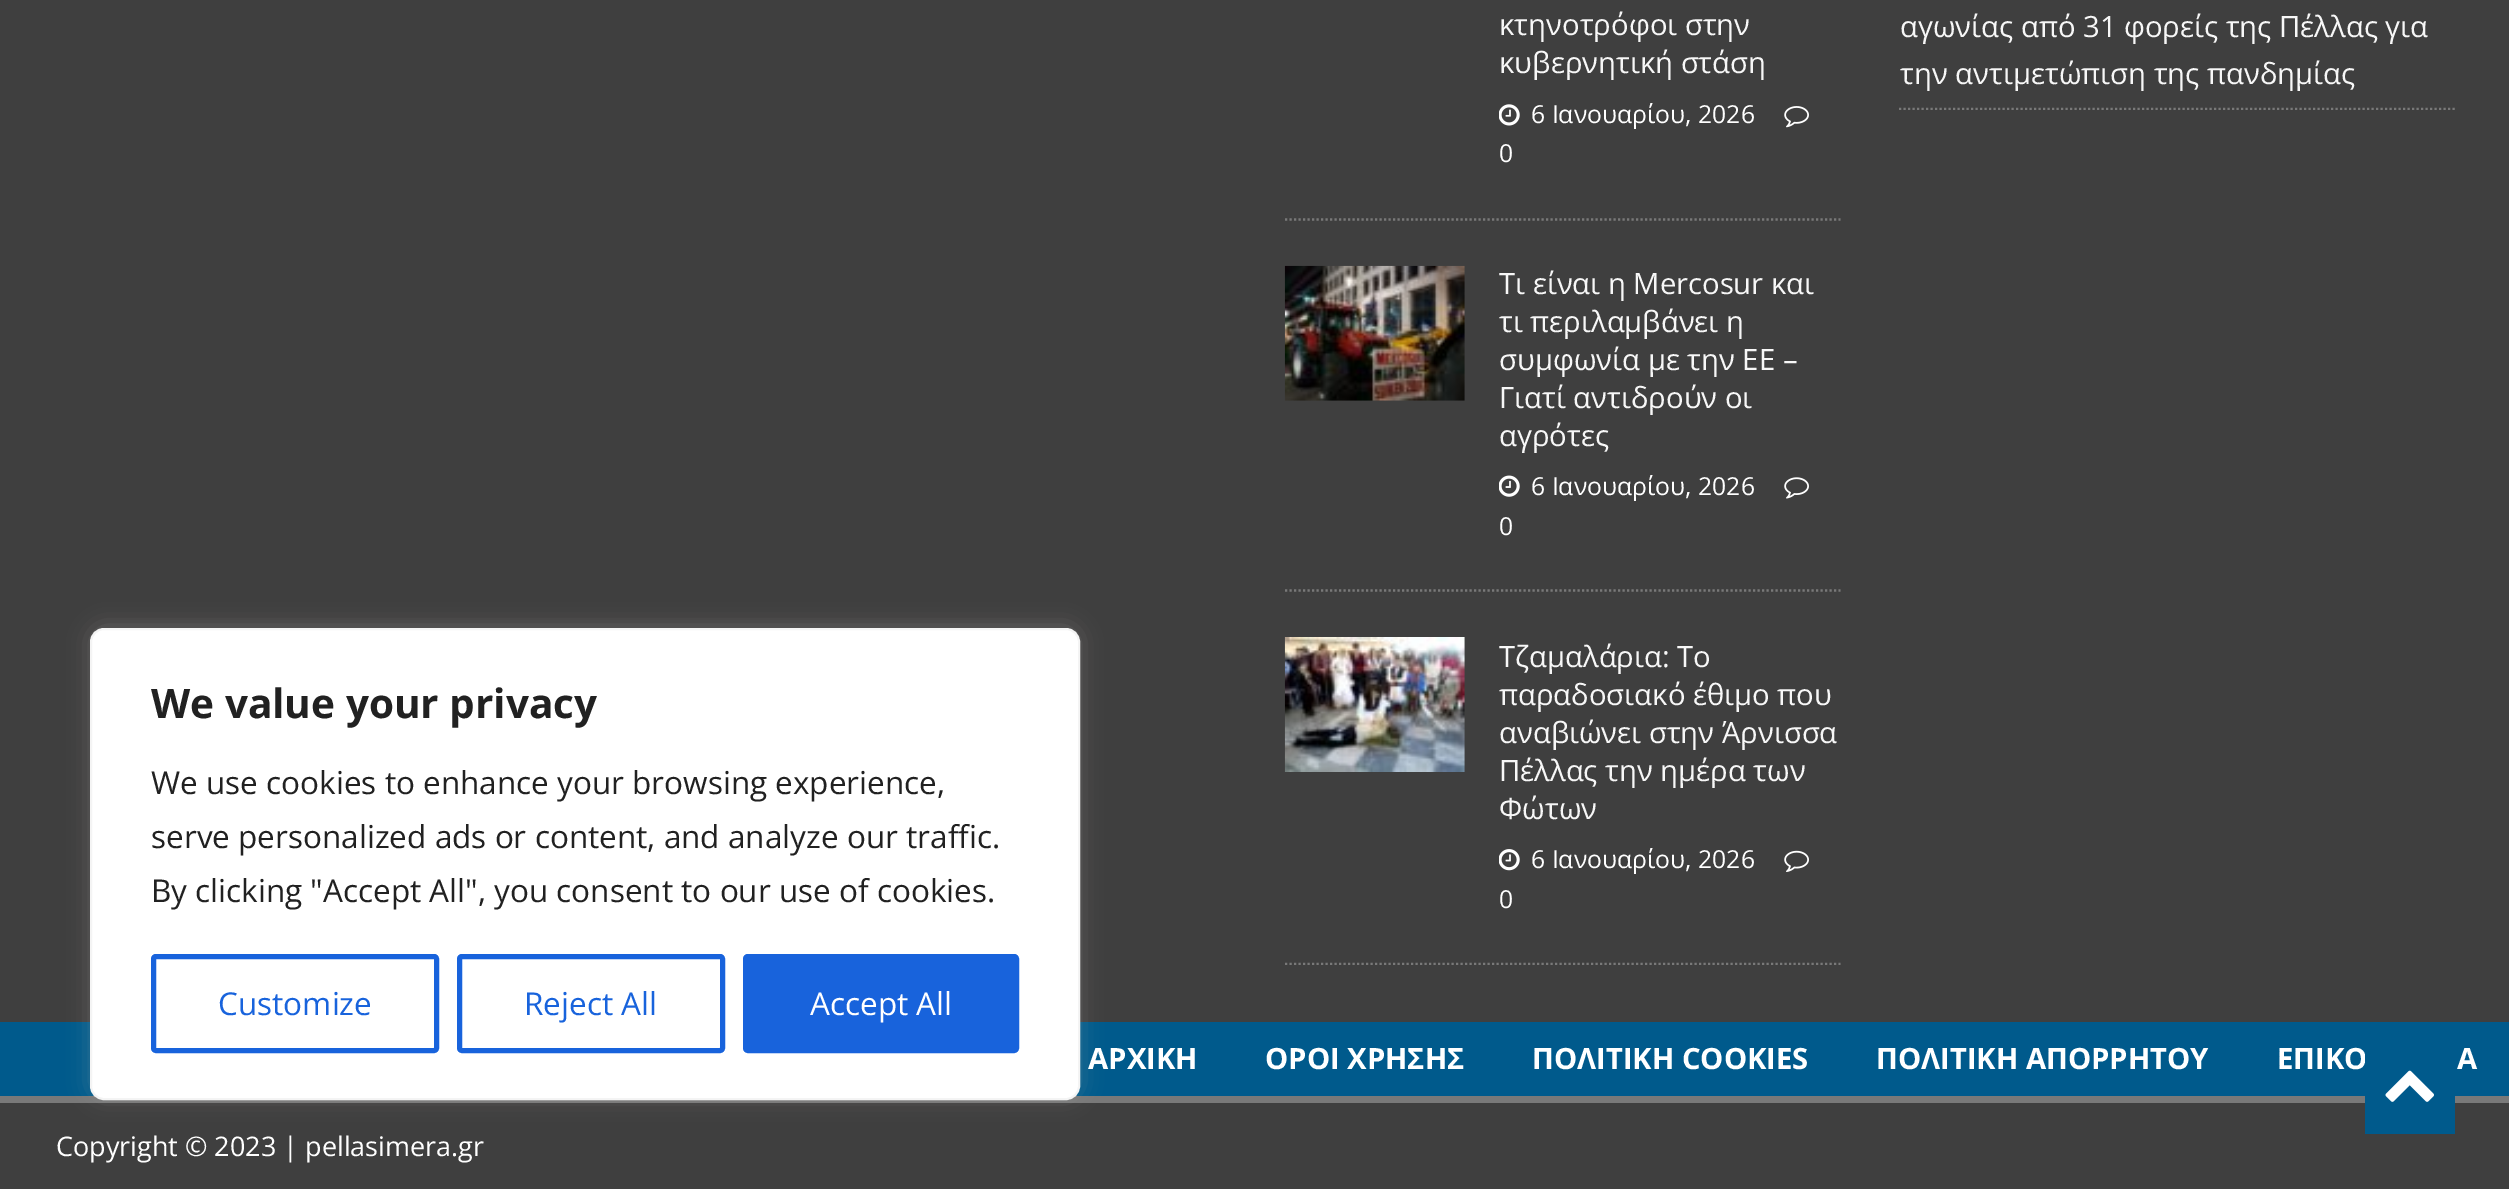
%!PS-Adobe-3.0
%%BoundingBox: 0 0 2509 1189
%%LanguageLevel: 3
%%Pages: 1
%%EndComments
%%BeginProlog
/setink { 3 { 255 div 3 1 roll } repeat setrgbcolor } def
/usefont { [ exch dup neg 0 0 3 -1 roll 0 0 ] selectfont } def
/drawtext { setink usefont moveto show } def
/fillbox { setink rectfill } def
/setalpha { dup .setfillconstantalpha .setstrokeconstantalpha } def
/rrect { 5 dict begin { /r /h /w /y /x } { exch def } forall
  x r add y moveto x w add y 2 copy h add r arct x w add y h add x 1 index r arct
  x y h add x y r arct x y 2 copy exch w add exch r arct closepath end } def
/softshadow { 12 dict begin { /a /b /q /h /w /y /x } { exch def } forall gsave /was 0 def
  9 -2 -9 { dup b mul 4 div /e exch def 1 sub .425 mul 2.718 exch exp 1 add a .99 .min exch div /now exch def
    1 1 now sub 1 was sub div sub setalpha /was now def
    w h .min e 2 mul add 0 gt { x e sub y e sub w e 2 mul add h e 2 mul add
      q e add b .6 mul add w h .min 2 div e add .min 0 .max rrect fill } if } for grestore end } def
/drawimage { 5 dict begin { /h /w /y /x /name } { exch def } forall
  gsave x y translate w h scale
  w h 8 [w 0 0 h 0 0] name (r) file false 3 colorimage grestore end } def
%%EndProlog
%%BeginSetup
<< /PageSize [2509 1189] /PageUsesTransparency true >> setpagedevice
%%EndSetup
%%Page: 1 1
0 .pushpdf14devicefilter
0 1189 translate 1 -1 scale
4 setmiterlimit
0 0 2509 1189 63 63 63 fillbox
0 1022 2509 74 0 90 140 fillbox
0 1096 2509 7 121 121 121 fillbox
172 171 171 setink
90 626 990 472 14 11 0.3 softshadow
255 255 255 setink
91 629 988 470 13 rrect gsave fill grestore
244 244 244 setink
2 setlinewidth
stroke
(We value your privacy) 151 718 /OpenSans-Bold 40.5 33 33 33 drawtext
(We use cookies to enhance your browsing experience,) 151 794 /OpenSans-Regular 31.5 33 33 33 drawtext
(serve personalized ads or content, and analyze our traffic.) 151 848 /OpenSans-Regular 31.5 33 33 33 drawtext
(By clicking "Accept All", you consent to our use of cookies.) 151 902 /OpenSans-Regular 31.5 33 33 33 drawtext
24 99 220 setink
5 setlinewidth
153.5 956.5 283 94 2.5 rrect stroke
(Customize) 218 1015 /OpenSans-Regular 31.5 24 99 220 drawtext
459.5 956.5 263 94 2.5 rrect stroke
(Reject All) 524 1015 /OpenSans-Regular 31.5 24 99 220 drawtext
745.5 956.5 271 94 2.5 rrect gsave fill grestore
stroke
(Accept All) 810 1015 /OpenSans-Regular 31.5 255 255 255 drawtext
121 121 121 setink
2.2 setlinewidth
[2.25 2.25] 0 setdash
1285 219.5 moveto 1840.5 219.5 lineto stroke
(κτηνοτρόφοι στην) 1499 35 /OpenSans-Regular 29.25 247 247 247 drawtext
(κυβερνητική στάση) 1499 73 /OpenSans-Regular 29.25 247 247 247 drawtext
(assets/img1.rgb) 1499 104 21 22 drawimage
(6 Ιανουαρίου, 2026) 1531 123 /OpenSans-Regular 24.75 255 255 255 drawtext
(assets/img2.rgb) 1784 106 25 22 drawimage
(0) 1499 162 /OpenSans-Regular 24.75 255 255 255 drawtext
121 121 121 setink
1285 590.5 moveto 1840.5 590.5 lineto stroke
(assets/img3.rgb) 1284 265 181 136 drawimage
(Τι είναι η Mercosur και) 1499 294 /OpenSans-Regular 29.25 247 247 247 drawtext
(τι περιλαμβάνει η) 1499 332 /OpenSans-Regular 29.25 247 247 247 drawtext
(συμφωνία με την ΕΕ –) 1499 370 /OpenSans-Regular 29.25 247 247 247 drawtext
(Γιατί αντιδρούν οι) 1499 408 /OpenSans-Regular 29.25 247 247 247 drawtext
(αγρότες) 1499 446 /OpenSans-Regular 29.25 247 247 247 drawtext
(assets/img4.rgb) 1499 475 21 22 drawimage
(6 Ιανουαρίου, 2026) 1531 495 /OpenSans-Regular 24.75 255 255 255 drawtext
(assets/img5.rgb) 1784 477 25 22 drawimage
(0) 1499 535 /OpenSans-Regular 24.75 255 255 255 drawtext
gsave
1285 0 556 965 rectclip
121 121 121 setink
1285 964 moveto 1840.5 964 lineto stroke
grestore
(assets/img6.rgb) 1284 637 181 135 drawimage
(Τζαμαλάρια: Το) 1499 667 /OpenSans-Regular 29.25 247 247 247 drawtext
(παραδοσιακό έθιμο που) 1499 705 /OpenSans-Regular 29.25 247 247 247 drawtext
(αναβιώνει στην Άρνισσα) 1499 743 /OpenSans-Regular 29.25 247 247 247 drawtext
(Πέλλας την ημέρα των) 1499 781 /OpenSans-Regular 29.25 247 247 247 drawtext
(Φώτων) 1499 819 /OpenSans-Regular 29.25 247 247 247 drawtext
(assets/img7.rgb) 1499 849 21 22 drawimage
(6 Ιανουαρίου, 2026) 1531 868 /OpenSans-Regular 24.75 255 255 255 drawtext
(assets/img8.rgb) 1784 850 25 22 drawimage
(0) 1499 908 /OpenSans-Regular 24.75 255 255 255 drawtext
gsave
1899 0 556 110 rectclip
121 121 121 setink
1899 109 moveto 2455 109 lineto stroke
grestore
(αγωνίας από 31 φορείς της Πέλλας για) 1900 37 /OpenSans-Regular 29.25 247 247 247 drawtext
(την αντιμετώπιση της πανδημίας) 1900 84 /OpenSans-Regular 29.25 247 247 247 drawtext
(ΑΡΧΙΚΗ) 1088 1069 /OpenSans-Bold 29.25 255 255 255 drawtext
(ΟΡΟΙ ΧΡΗΣΗΣ) 1265 1069 /OpenSans-Bold 29.25 255 255 255 drawtext
(ΠΟΛΙΤΙΚΗ COOKIES) 1532 1069 /OpenSans-Bold 29.25 255 255 255 drawtext
(ΠΟΛΙΤΙΚΗ ΑΠΟΡΡΗΤΟΥ) 1876 1069 /OpenSans-Bold 29.25 255 255 255 drawtext
(ΕΠΙΚΟ) 2277 1069 /OpenSans-Bold 29.25 255 255 255 drawtext
(Α) 2457 1069 /OpenSans-Bold 29.25 255 255 255 drawtext
2365 1055 90 79 0 90 140 fillbox
(assets/img9.rgb) 2385 1070 49 32 drawimage
(Copyright © 2023 | pellasimera.gr) 56 1156 /OpenSans-Regular 27 255 255 255 drawtext
.poppdf14devicefilter showpage
%%EOF
